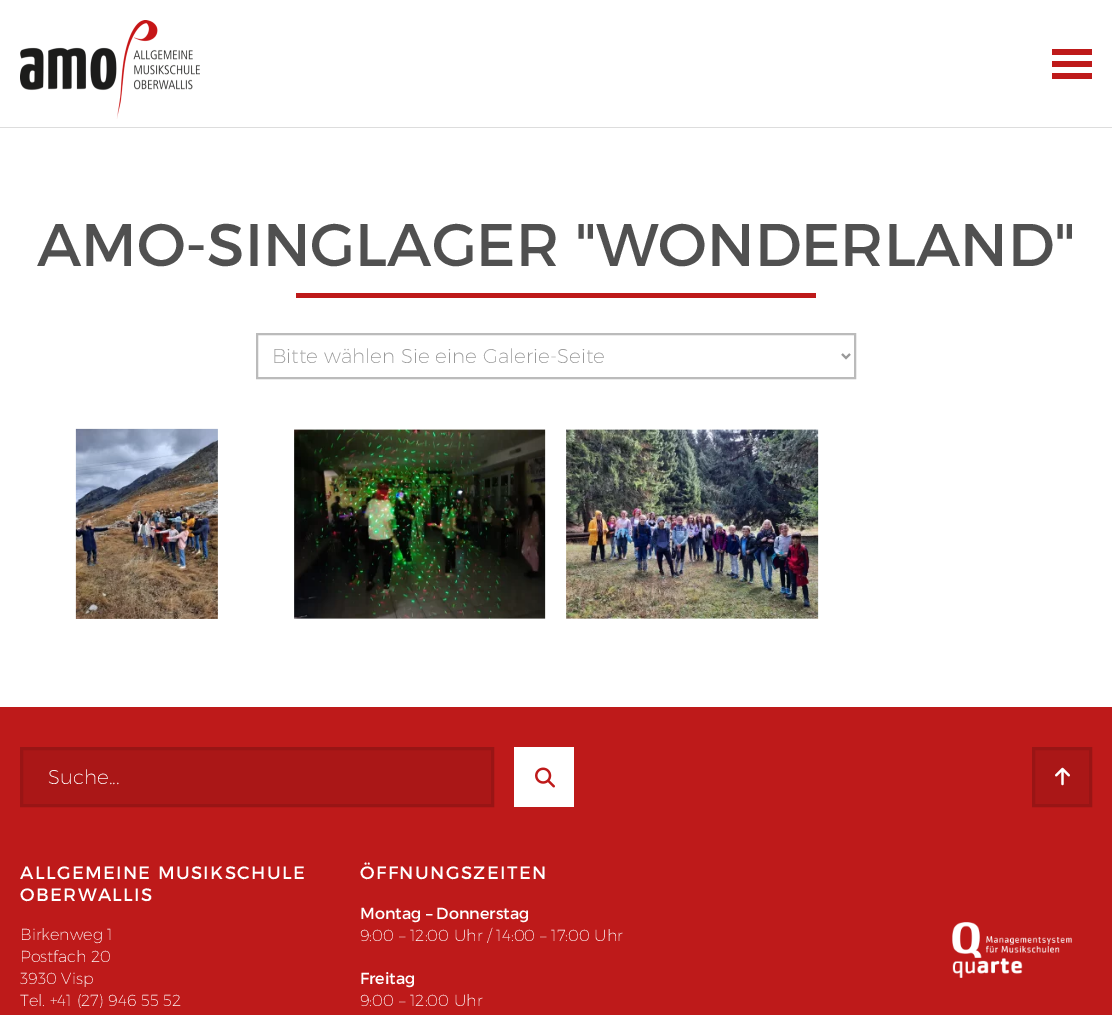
%!PS-Adobe-3.0
%%BoundingBox: 0 0 1112 1015
%%LanguageLevel: 3
%%Pages: 1
%%EndComments
%%BeginProlog
/setink { 3 { 255 div 3 1 roll } repeat setrgbcolor } def
/usefont { [ exch dup neg 0 0 3 -1 roll 0 0 ] selectfont } def
/drawtext { setink usefont moveto show } def
/fillbox { setink rectfill } def
/drawimage { 5 dict begin { /h /w /y /x /name } { exch def } forall
  gsave x y translate w h scale
  w h 8 [w 0 0 h 0 0] name (r) file false 3 colorimage grestore end } def
%%EndProlog
%%BeginSetup
<< /PageSize [1112 1015] >> setpagedevice
%%EndSetup
%%Page: 1 1
0 1015 translate 1 -1 scale
4 setmiterlimit
0 0 1112 1015 255 255 255 fillbox
0 127 1112 1 221 221 221 fillbox
(assets/img1.rgb) 20 20 180 99 drawimage
1052 49 40 6 190 26 26 fillbox
1052 61 40 6 190 26 26 fillbox
1052 73 40 6 190 26 26 fillbox
(AMO-SINGLAGER "WONDERLAND") 37 266 /Montserrat-Regular 60 80 80 80 drawtext
296 293 520 5 190 26 26 fillbox
187 187 187 setink
2 setlinewidth
257 334 598 44 rectstroke
153 153 153 setink
842 354 moveto 846 358 lineto 850 354 lineto stroke
(Bitte wählen Sie eine Galerie-Seite) 272 363 /Montserrat-ExtraLight 20 153 153 153 drawtext
(assets/img2.rgb) 75 428 143 191 drawimage
(assets/img3.rgb) 294 429 252 190 drawimage
(assets/img4.rgb) 566 429 253 190 drawimage
0 707 1112 308 190 26 26 fillbox
514 747 60 60 255 255 255 fillbox
170 23 23 setink
21.5 748.5 moveto 492.5 748.5 lineto 492.5 805.5 lineto 21.5 805.5 lineto closepath gsave fill grestore
153 21 21 setink
3 setlinewidth
stroke
(Suche...) 48 784 /Montserrat-ExtraLight 20 255 255 255 drawtext
(assets/img5.rgb) 535 767 20 21 drawimage
170 23 23 setink
1033.5 748.5 moveto 1090.5 748.5 lineto 1090.5 805.5 lineto 1033.5 805.5 lineto closepath gsave fill grestore
153 21 21 setink
stroke
(assets/img6.rgb) 1055 767 15 19 drawimage
/Montserrat-Regular 18 usefont
255 255 255 setink
20 879 moveto 1.4 0 (ALLGEMEINE MUSIKSCHULE) ashow
20 901 moveto 1.4 0 (OBERWALLIS) ashow
(Birkenweg 1) 20 940 /Montserrat-ExtraLight 16 255 255 255 drawtext
(Postfach 20) 20 962 /Montserrat-ExtraLight 16 255 255 255 drawtext
(3930 Visp) 20 984 /Montserrat-ExtraLight 16 255 255 255 drawtext
(Tel. +41 \(27\) 946 55 52) 20 1006 /Montserrat-ExtraLight 16 255 255 255 drawtext
/Montserrat-Regular 18 usefont
360 879 moveto 1.4 0 (ÖFFNUNGSZEITEN) ashow
(Montag – Donnerstag) 360 919 /Montserrat-Regular 16 255 255 255 drawtext
(9:00 – 12:00 Uhr / 14:00 – 17:00 Uhr) 360 941 /Montserrat-ExtraLight 16 255 255 255 drawtext
(Freitag) 360 984 /Montserrat-Regular 16 255 255 255 drawtext
(9:00 – 12:00 Uhr) 360 1006 /Montserrat-ExtraLight 16 255 255 255 drawtext
(assets/img7.rgb) 952 922 120 56 drawimage
showpage
%%EOF
